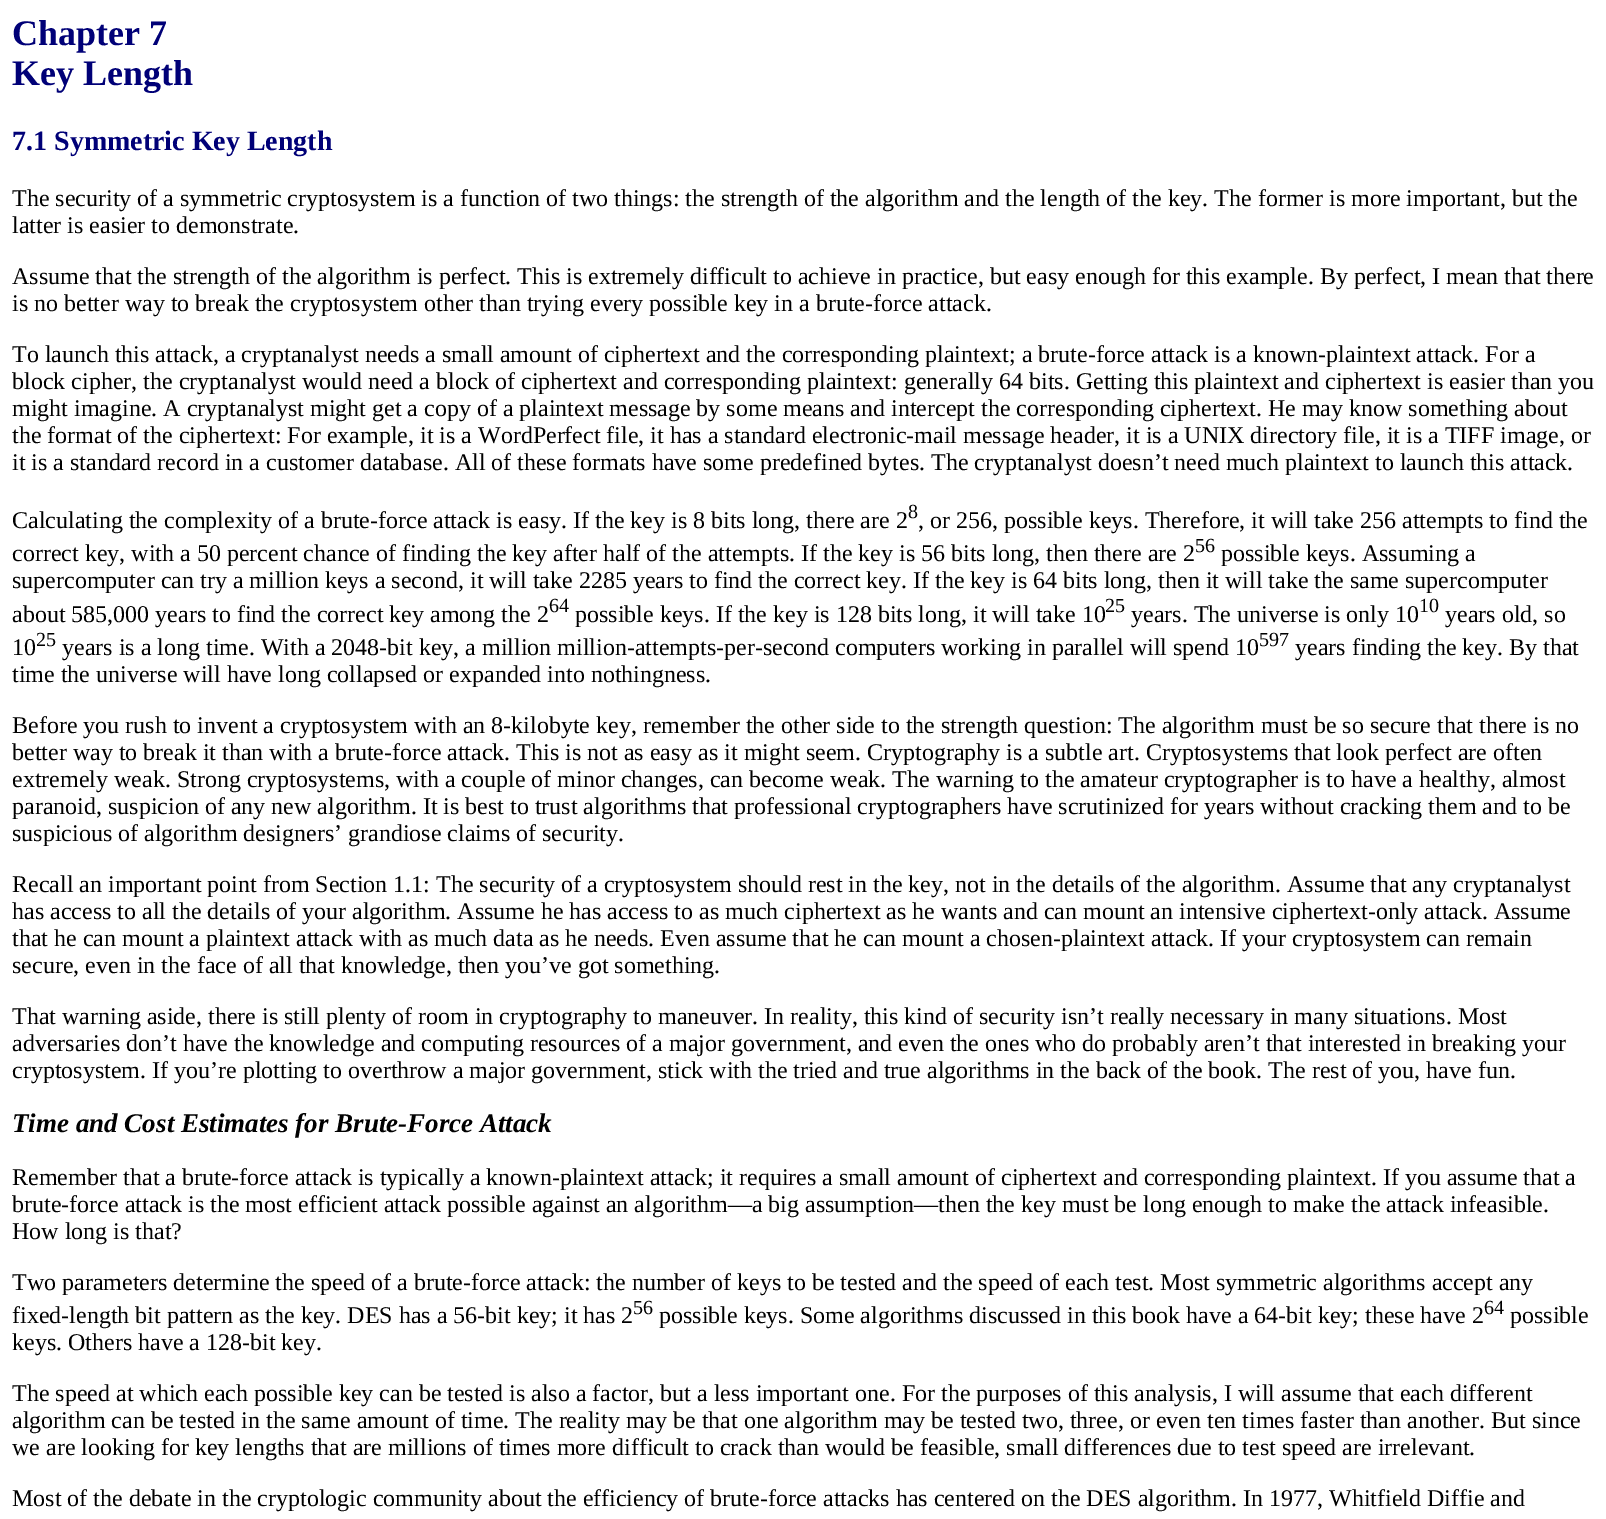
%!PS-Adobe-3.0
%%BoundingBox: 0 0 1606 1519
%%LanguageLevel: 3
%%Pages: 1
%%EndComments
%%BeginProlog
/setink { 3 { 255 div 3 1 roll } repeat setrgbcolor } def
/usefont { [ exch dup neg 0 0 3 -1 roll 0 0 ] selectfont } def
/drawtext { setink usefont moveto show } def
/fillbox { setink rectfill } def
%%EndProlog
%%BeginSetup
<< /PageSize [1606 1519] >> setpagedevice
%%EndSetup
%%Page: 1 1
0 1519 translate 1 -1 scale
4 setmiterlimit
0 0 1606 1519 255 255 255 fillbox
(Chapter 7) 12 45 /LiberationSerif-Bold 36 0 0 119 drawtext
(Key Length) 12 85 /LiberationSerif-Bold 36 0 0 119 drawtext
(7.1 Symmetric Key Length) 12 150 /LiberationSerif-Bold 28 0 0 119 drawtext
(The security of a symmetric cryptosystem is a function of two things: the strength of the algorithm and the length of the key. The former is more important, but the) 12 206 /LiberationSerif-Regular 24 0 0 0 drawtext
(latter is easier to demonstrate.) 12 233 /LiberationSerif-Regular 24 0 0 0 drawtext
(Assume that the strength of the algorithm is perfect. This is extremely difficult to achieve in practice, but easy enough for this example. By perfect, I mean that there) 12 284 /LiberationSerif-Regular 24 0 0 0 drawtext
(is no better way to break the cryptosystem other than trying every possible key in a brute-force attack.) 12 311 /LiberationSerif-Regular 24 0 0 0 drawtext
(To launch this attack, a cryptanalyst needs a small amount of ciphertext and the corresponding plaintext; a brute-force attack is a known-plaintext attack. For a) 12 362 /LiberationSerif-Regular 24 0 0 0 drawtext
(block cipher, the cryptanalyst would need a block of ciphertext and corresponding plaintext: generally 64 bits. Getting this plaintext and ciphertext is easier than you) 12 389 /LiberationSerif-Regular 24 0 0 0 drawtext
(might imagine. A cryptanalyst might get a copy of a plaintext message by some means and intercept the corresponding ciphertext. He may know something about) 12 416 /LiberationSerif-Regular 24 0 0 0 drawtext
(the format of the ciphertext: For example, it is a WordPerfect file, it has a standard electronic-mail message header, it is a UNIX directory file, it is a TIFF image, or) 12 443 /LiberationSerif-Regular 24 0 0 0 drawtext
(it is a standard record in a customer database. All of these formats have some predefined bytes. The cryptanalyst doesn’t need much plaintext to launch this attack.) 12 470 /LiberationSerif-Regular 24 0 0 0 drawtext
(Calculating the complexity of a brute-force attack is easy. If the key is 8 bits long, there are 2) 12 528 /LiberationSerif-Regular 24 0 0 0 drawtext
(8) 908 518 /LiberationSerif-Regular 20 0 0 0 drawtext
(, or 256, possible keys. Therefore, it will take 256 attempts to find the) 918 528 /LiberationSerif-Regular 24 0 0 0 drawtext
(correct key, with a 50 percent chance of finding the key after half of the attempts. If the key is 56 bits long, then there are 2) 12 561 /LiberationSerif-Regular 24 0 0 0 drawtext
(56) 1195 552 /LiberationSerif-Regular 20 0 0 0 drawtext
(possible keys. Assuming a) 1221 561 /LiberationSerif-Regular 24 0 0 0 drawtext
(supercomputer can try a million keys a second, it will take 2285 years to find the correct key. If the key is 64 bits long, then it will take the same supercomputer) 12 588 /LiberationSerif-Regular 24 0 0 0 drawtext
(about 585,000 years to find the correct key among the 2) 12 622 /LiberationSerif-Regular 24 0 0 0 drawtext
(64) 549 612 /LiberationSerif-Regular 20 0 0 0 drawtext
(possible keys. If the key is 128 bits long, it will take 10) 575 622 /LiberationSerif-Regular 24 0 0 0 drawtext
(25) 1105 612 /LiberationSerif-Regular 20 0 0 0 drawtext
(years. The universe is only 10) 1131 622 /LiberationSerif-Regular 24 0 0 0 drawtext
(10) 1419 612 /LiberationSerif-Regular 20 0 0 0 drawtext
(years old, so) 1445 622 /LiberationSerif-Regular 24 0 0 0 drawtext
(10) 12 655 /LiberationSerif-Regular 24 0 0 0 drawtext
(25) 36 646 /LiberationSerif-Regular 20 0 0 0 drawtext
(years is a long time. With a 2048-bit key, a million million-attempts-per-second computers working in parallel will spend 10) 62 655 /LiberationSerif-Regular 24 0 0 0 drawtext
(597) 1259 646 /LiberationSerif-Regular 20 0 0 0 drawtext
(years finding the key. By that) 1295 655 /LiberationSerif-Regular 24 0 0 0 drawtext
(time the universe will have long collapsed or expanded into nothingness.) 12 682 /LiberationSerif-Regular 24 0 0 0 drawtext
(Before you rush to invent a cryptosystem with an 8-kilobyte key, remember the other side to the strength question: The algorithm must be so secure that there is no) 12 733 /LiberationSerif-Regular 24 0 0 0 drawtext
(better way to break it than with a brute-force attack. This is not as easy as it might seem. Cryptography is a subtle art. Cryptosystems that look perfect are often) 12 760 /LiberationSerif-Regular 24 0 0 0 drawtext
(extremely weak. Strong cryptosystems, with a couple of minor changes, can become weak. The warning to the amateur cryptographer is to have a healthy, almost) 12 787 /LiberationSerif-Regular 24 0 0 0 drawtext
(paranoid, suspicion of any new algorithm. It is best to trust algorithms that professional cryptographers have scrutinized for years without cracking them and to be) 12 814 /LiberationSerif-Regular 24 0 0 0 drawtext
(suspicious of algorithm designers’ grandiose claims of security.) 12 841 /LiberationSerif-Regular 24 0 0 0 drawtext
(Recall an important point from Section 1.1: The security of a cryptosystem should rest in the key, not in the details of the algorithm. Assume that any cryptanalyst) 12 892 /LiberationSerif-Regular 24 0 0 0 drawtext
(has access to all the details of your algorithm. Assume he has access to as much ciphertext as he wants and can mount an intensive ciphertext-only attack. Assume) 12 919 /LiberationSerif-Regular 24 0 0 0 drawtext
(that he can mount a plaintext attack with as much data as he needs. Even assume that he can mount a chosen-plaintext attack. If your cryptosystem can remain) 12 946 /LiberationSerif-Regular 24 0 0 0 drawtext
(secure, even in the face of all that knowledge, then you’ve got something.) 12 973 /LiberationSerif-Regular 24 0 0 0 drawtext
(That warning aside, there is still plenty of room in cryptography to maneuver. In reality, this kind of security isn’t really necessary in many situations. Most) 12 1024 /LiberationSerif-Regular 24 0 0 0 drawtext
(adversaries don’t have the knowledge and computing resources of a major government, and even the ones who do probably aren’t that interested in breaking your) 12 1051 /LiberationSerif-Regular 24 0 0 0 drawtext
(cryptosystem. If you’re plotting to overthrow a major government, stick with the tried and true algorithms in the back of the book. The rest of you, have fun.) 12 1078 /LiberationSerif-Regular 24 0 0 0 drawtext
(Time and Cost Estimates for Brute-Force Attack) 12 1132 /LiberationSerif-BoldItalic 27 0 0 0 drawtext
(Remember that a brute-force attack is typically a known-plaintext attack; it requires a small amount of ciphertext and corresponding plaintext. If you assume that a) 12 1185 /LiberationSerif-Regular 24 0 0 0 drawtext
(brute-force attack is the most efficient attack possible against an algorithm—a big assumption—then the key must be long enough to make the attack infeasible.) 12 1212 /LiberationSerif-Regular 24 0 0 0 drawtext
(How long is that?) 12 1239 /LiberationSerif-Regular 24 0 0 0 drawtext
(Two parameters determine the speed of a brute-force attack: the number of keys to be tested and the speed of each test. Most symmetric algorithms accept any) 12 1290 /LiberationSerif-Regular 24 0 0 0 drawtext
(fixed-length bit pattern as the key. DES has a 56-bit key; it has 2) 12 1323 /LiberationSerif-Regular 24 0 0 0 drawtext
(56) 633 1314 /LiberationSerif-Regular 20 0 0 0 drawtext
(possible keys. Some algorithms discussed in this book have a 64-bit key; these have 2) 659 1323 /LiberationSerif-Regular 24 0 0 0 drawtext
(64) 1484 1314 /LiberationSerif-Regular 20 0 0 0 drawtext
(possible) 1510 1323 /LiberationSerif-Regular 24 0 0 0 drawtext
(keys. Others have a 128-bit key.) 12 1350 /LiberationSerif-Regular 24 0 0 0 drawtext
(The speed at which each possible key can be tested is also a factor, but a less important one. For the purposes of this analysis, I will assume that each different) 12 1401 /LiberationSerif-Regular 24 0 0 0 drawtext
(algorithm can be tested in the same amount of time. The reality may be that one algorithm may be tested two, three, or even ten times faster than another. But since) 12 1428 /LiberationSerif-Regular 24 0 0 0 drawtext
(we are looking for key lengths that are millions of times more difficult to crack than would be feasible, small differences due to test speed are irrelevant.) 12 1455 /LiberationSerif-Regular 24 0 0 0 drawtext
(Most of the debate in the cryptologic community about the efficiency of brute-force attacks has centered on the DES algorithm. In 1977, Whitfield Diffie and) 12 1506 /LiberationSerif-Regular 24 0 0 0 drawtext
showpage
%%EOF
